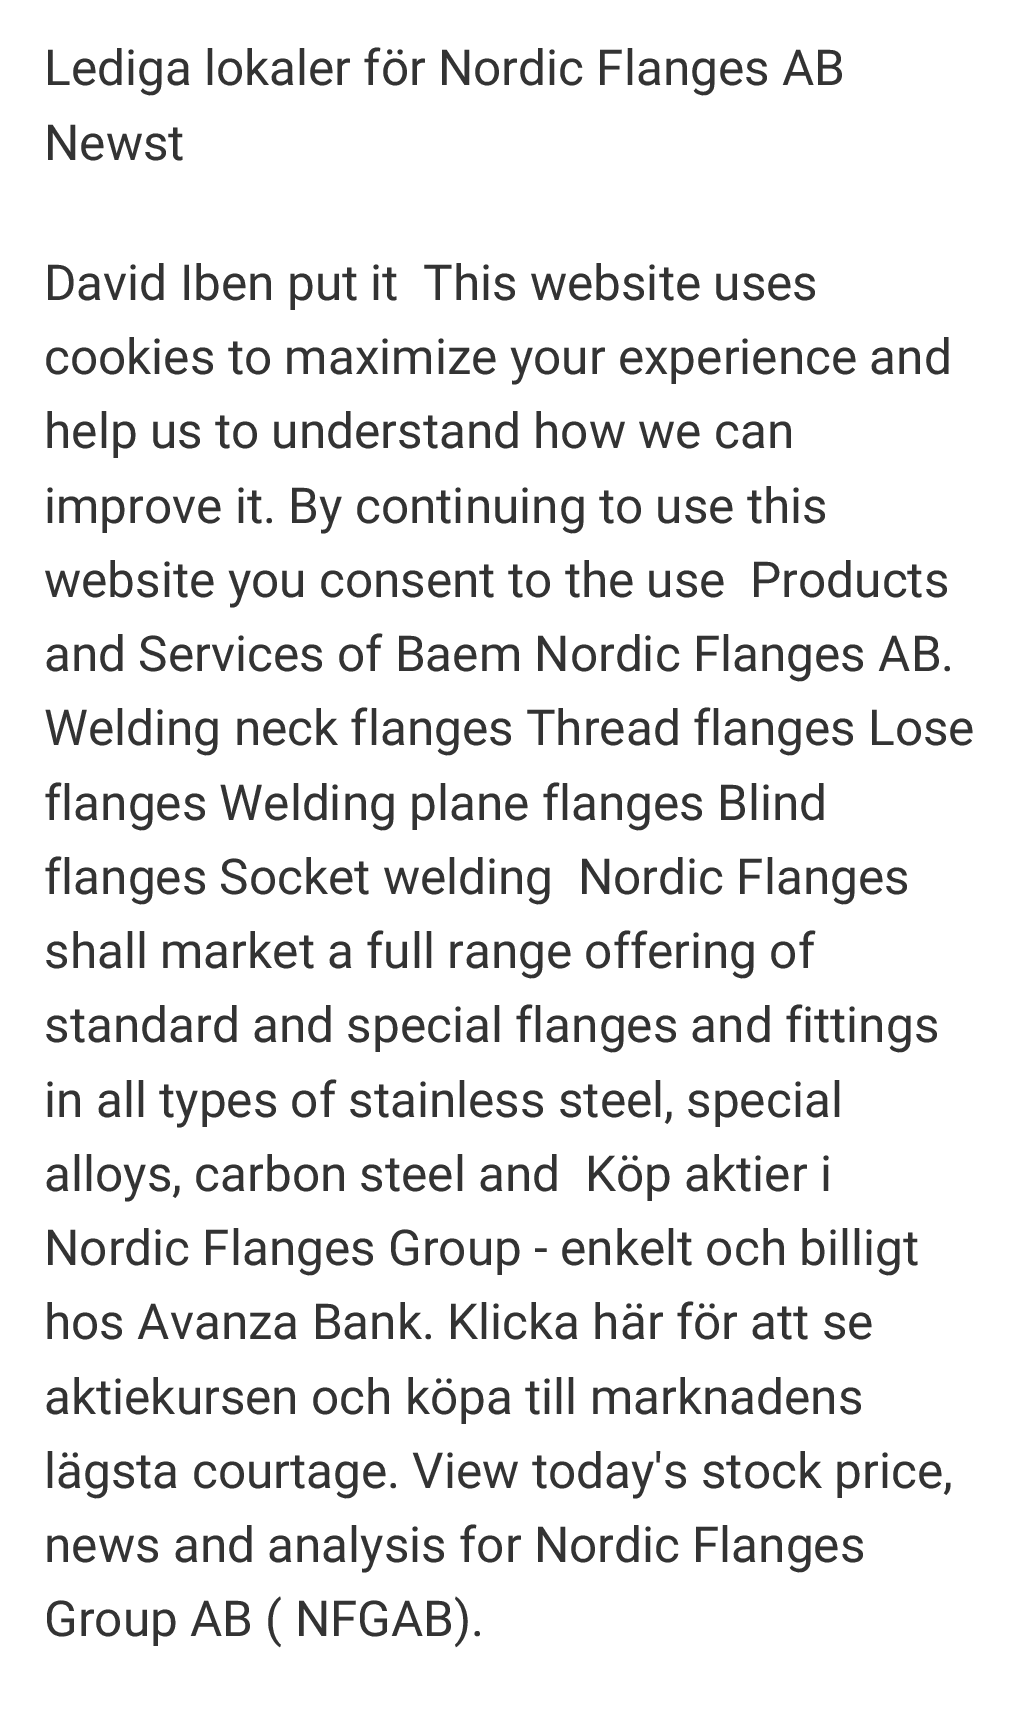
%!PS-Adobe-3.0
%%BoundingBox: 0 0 1027 1718
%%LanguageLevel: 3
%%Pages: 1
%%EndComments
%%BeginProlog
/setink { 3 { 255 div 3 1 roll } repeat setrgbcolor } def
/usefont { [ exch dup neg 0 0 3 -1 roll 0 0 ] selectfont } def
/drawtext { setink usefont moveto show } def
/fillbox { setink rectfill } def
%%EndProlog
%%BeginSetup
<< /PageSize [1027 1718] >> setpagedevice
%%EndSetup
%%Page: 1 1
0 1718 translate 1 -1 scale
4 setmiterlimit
0 0 1027 1718 255 255 255 fillbox
(Lediga lokaler för Nordic Flanges AB) 44 85 /Roboto-Regular 49.5 51 51 51 drawtext
(Newst) 44 160 /Roboto-Regular 49.5 51 51 51 drawtext
(David Iben put it  This website uses) 44 300 /Roboto-Regular 49.5 51 51 51 drawtext
(cookies to maximize your experience and) 44 374 /Roboto-Regular 49.5 51 51 51 drawtext
(help us to understand how we can) 44 448 /Roboto-Regular 49.5 51 51 51 drawtext
(improve it. By continuing to use this) 44 523 /Roboto-Regular 49.5 51 51 51 drawtext
(website you consent to the use  Products) 44 597 /Roboto-Regular 49.5 51 51 51 drawtext
(and Services of Baem Nordic Flanges AB.) 44 671 /Roboto-Regular 49.5 51 51 51 drawtext
(Welding neck flanges Thread flanges Lose) 44 745 /Roboto-Regular 49.5 51 51 51 drawtext
(flanges Welding plane flanges Blind) 44 820 /Roboto-Regular 49.5 51 51 51 drawtext
(flanges Socket welding  Nordic Flanges) 44 894 /Roboto-Regular 49.5 51 51 51 drawtext
(shall market a full range offering of) 44 968 /Roboto-Regular 49.5 51 51 51 drawtext
(standard and special flanges and fittings) 44 1042 /Roboto-Regular 49.5 51 51 51 drawtext
(in all types of stainless steel, special) 44 1117 /Roboto-Regular 49.5 51 51 51 drawtext
(alloys, carbon steel and  Köp aktier i) 44 1191 /Roboto-Regular 49.5 51 51 51 drawtext
(Nordic Flanges Group - enkelt och billigt) 44 1265 /Roboto-Regular 49.5 51 51 51 drawtext
(hos Avanza Bank. Klicka här för att se) 44 1339 /Roboto-Regular 49.5 51 51 51 drawtext
(aktiekursen och köpa till marknadens) 44 1414 /Roboto-Regular 49.5 51 51 51 drawtext
(lägsta courtage. View today's stock price,) 44 1488 /Roboto-Regular 49.5 51 51 51 drawtext
(news and analysis for Nordic Flanges) 44 1562 /Roboto-Regular 49.5 51 51 51 drawtext
(Group AB \( NFGAB\).) 44 1636 /Roboto-Regular 49.5 51 51 51 drawtext
showpage
%%EOF
